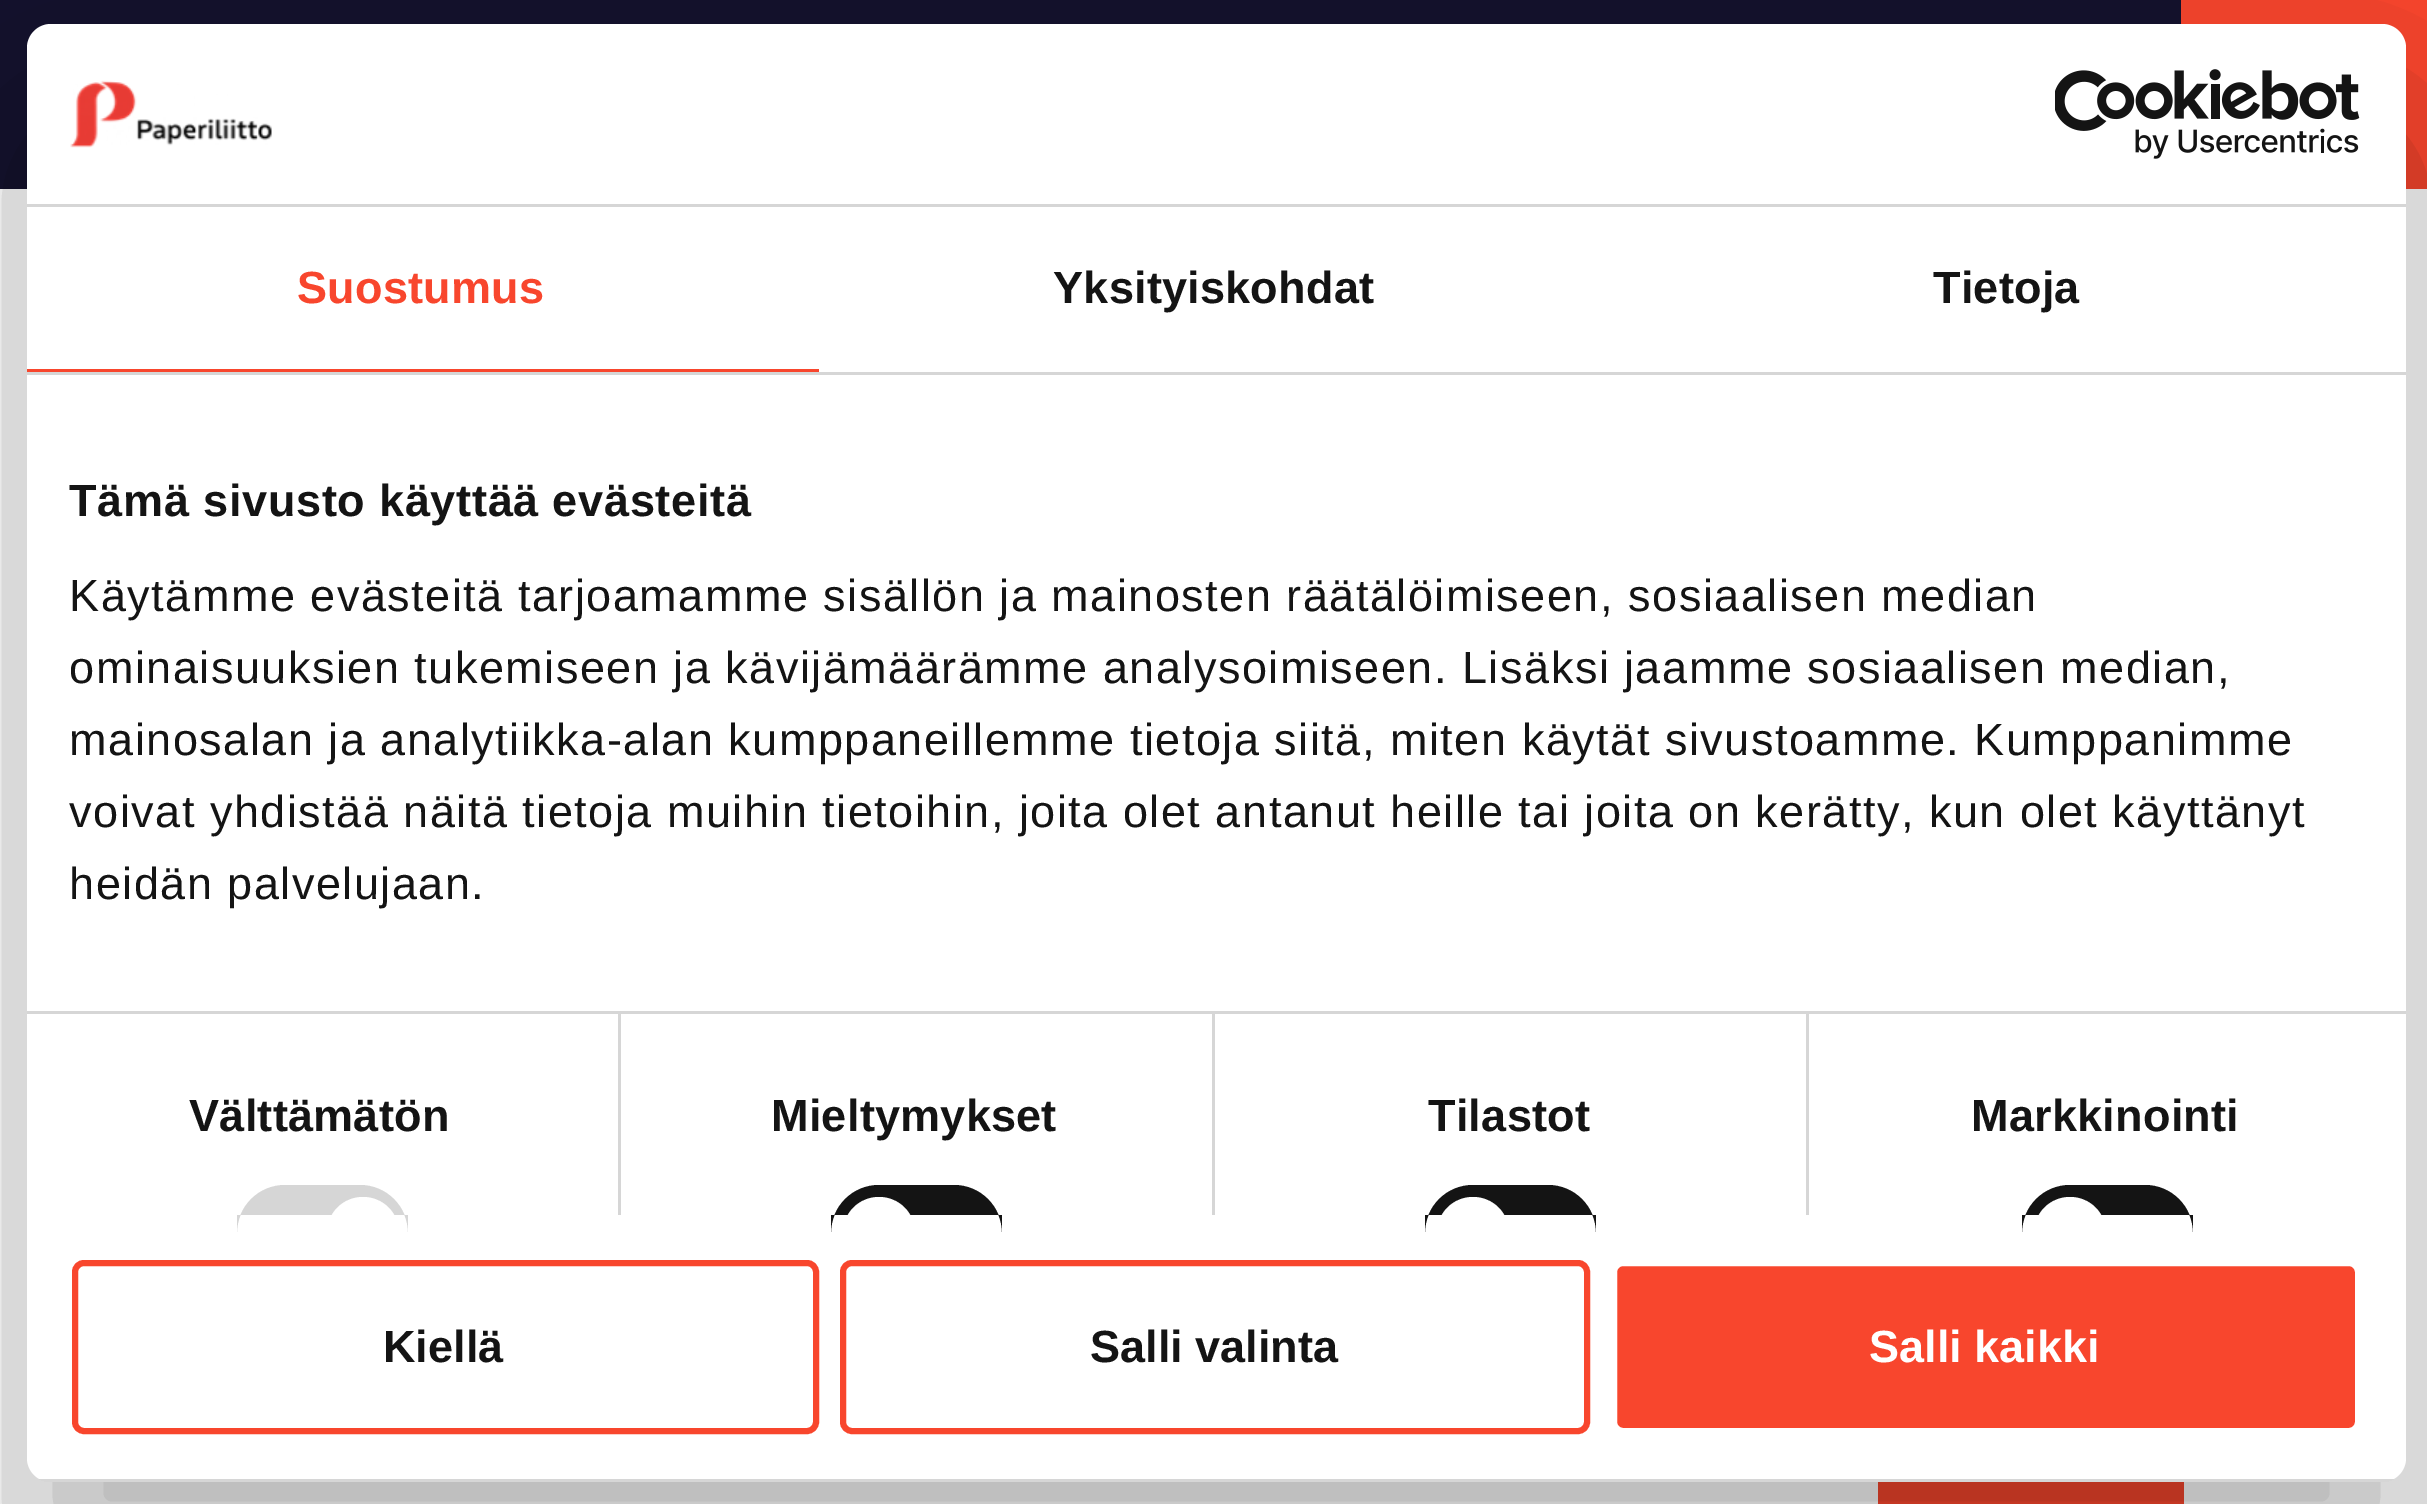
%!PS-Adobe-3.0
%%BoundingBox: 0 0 2427 1504
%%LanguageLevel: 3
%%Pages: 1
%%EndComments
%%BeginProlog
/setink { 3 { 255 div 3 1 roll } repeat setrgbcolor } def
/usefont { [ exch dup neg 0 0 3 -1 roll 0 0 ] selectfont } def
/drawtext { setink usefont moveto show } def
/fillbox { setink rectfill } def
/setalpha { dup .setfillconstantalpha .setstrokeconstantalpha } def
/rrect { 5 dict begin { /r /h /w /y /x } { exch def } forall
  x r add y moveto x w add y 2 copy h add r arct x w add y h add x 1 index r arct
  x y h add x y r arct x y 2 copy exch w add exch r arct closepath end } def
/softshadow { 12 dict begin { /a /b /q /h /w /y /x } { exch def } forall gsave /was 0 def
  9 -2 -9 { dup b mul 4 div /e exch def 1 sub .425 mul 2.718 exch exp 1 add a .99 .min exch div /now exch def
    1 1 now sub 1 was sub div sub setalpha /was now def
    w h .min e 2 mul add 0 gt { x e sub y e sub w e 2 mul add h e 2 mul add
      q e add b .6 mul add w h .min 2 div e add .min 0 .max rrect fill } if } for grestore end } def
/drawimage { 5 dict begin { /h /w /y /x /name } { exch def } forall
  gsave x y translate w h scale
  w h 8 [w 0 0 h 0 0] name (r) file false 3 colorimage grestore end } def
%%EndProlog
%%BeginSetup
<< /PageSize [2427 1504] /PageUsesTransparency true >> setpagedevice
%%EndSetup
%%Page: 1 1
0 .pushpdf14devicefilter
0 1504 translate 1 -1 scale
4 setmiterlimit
0 0 2427 1504 255 255 255 fillbox
0 0 2181 189 19 17 45 fillbox
2181 0 246 189 248 70 45 fillbox
1878 1482 306 22 248 70 45 fillbox
gsave
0 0 moveto 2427 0 lineto 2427 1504 lineto 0 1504 lineto closepath 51 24 moveto 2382 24 lineto 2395.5 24 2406 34.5 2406 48 curveto 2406 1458 lineto 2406 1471.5 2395.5 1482 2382 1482 curveto 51 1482 lineto 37.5 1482 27 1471.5 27 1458 curveto 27 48 lineto 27 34.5 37.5 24 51 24 curveto closepath eoclip newpath
0 0 0 setink
27 120 2379 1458 24 102 0.3 softshadow
grestore
255 255 255 setink
27 24 2379 1458 24 rrect fill
27 204 2379 3 214 214 214 fillbox
(assets/img1.rgb) 70 80 202 68 drawimage
(assets/img2.rgb) 2055 69 305 90 drawimage
27 372 2379 3 214 214 214 fillbox
27 369 792 3 248 70 45 fillbox
/LiberationSans-Bold 45 usefont
297 303 moveto 0.25 0 (Suostumus) ashow
20 20 20 setink
1053 303 moveto 0.25 0 (Yksityiskohdat) ashow
1933 303 moveto 0.25 0 (Tietoja) ashow
27 1011 2379 3 214 214 214 fillbox
20 20 20 setink
69 516 moveto 0.75 0 (Tämä sivusto käyttää evästeitä) ashow
/LiberationSans-Regular 45 usefont
69 611 moveto 1.5 0 (Käytämme evästeitä tarjoamamme sisällön ja mainosten räätälöimiseen, sosiaalisen median) ashow
69 683 moveto 1.5 0 (ominaisuuksien tukemiseen ja kävijämäärämme analysoimiseen. Lisäksi jaamme sosiaalisen median,) ashow
69 755 moveto 1.5 0 (mainosalan ja analytiikka-alan kumppaneillemme tietoja siitä, miten käytät sivustoamme. Kumppanimme) ashow
69 827 moveto 1.5 0 (voivat yhdistää näitä tietoja muihin tietoihin, joita olet antanut heille tai joita on kerätty, kun olet käyttänyt) ashow
69 899 moveto 1.5 0 (heidän palvelujaan.) ashow
618 1014 3 201 214 214 214 fillbox
/LiberationSans-Bold 45 usefont
20 20 20 setink
189 1131 moveto 0.25 0 (Välttämätön) ashow
214 214 214 setink
285 1185 moveto 360 1185 lineto 386.5 1185 408 1206.5 408 1233 curveto 408 1215 lineto 237 1215 lineto 237 1233 lineto 237 1206.5 258.5 1185 285 1185 curveto closepath fill
255 255 255 setink
363 1197 moveto 383 1197 399 1213 399 1233 curveto 399 1215 lineto 327 1215 lineto 327 1233 lineto 327 1213 343 1197 363 1197 curveto closepath fill
1212 1014 3 201 214 214 214 fillbox
20 20 20 setink
771 1131 moveto 0.25 0 (Mieltymykset) ashow
879 1185 moveto 954 1185 lineto 980.5 1185 1002 1206.5 1002 1233 curveto 1002 1215 lineto 831 1215 lineto 831 1233 lineto 831 1206.5 852.5 1185 879 1185 curveto closepath fill
255 255 255 setink
879 1197 moveto 899 1197 915 1213 915 1233 curveto 915 1215 lineto 843 1215 lineto 843 1233 lineto 843 1213 859 1197 879 1197 curveto closepath fill
1806 1014 3 201 214 214 214 fillbox
20 20 20 setink
1428 1131 moveto 0.25 0 (Tilastot) ashow
1473 1185 moveto 1548 1185 lineto 1574.5 1185 1596 1206.5 1596 1233 curveto 1596 1215 lineto 1425 1215 lineto 1425 1233 lineto 1425 1206.5 1446.5 1185 1473 1185 curveto closepath fill
255 255 255 setink
1473 1197 moveto 1493 1197 1509 1213 1509 1233 curveto 1509 1215 lineto 1437 1215 lineto 1437 1233 lineto 1437 1213 1453 1197 1473 1197 curveto closepath fill
20 20 20 setink
1971 1131 moveto 0.25 0 (Markkinointi) ashow
2070 1185 moveto 2145 1185 lineto 2171.5 1185 2193 1206.5 2193 1233 curveto 2193 1215 lineto 2022 1215 lineto 2022 1233 lineto 2022 1206.5 2043.5 1185 2070 1185 curveto closepath fill
255 255 255 setink
2070 1197 moveto 2090 1197 2106 1213 2106 1233 curveto 2106 1215 lineto 2034 1215 lineto 2034 1233 lineto 2034 1213 2050 1197 2070 1197 curveto closepath fill
gsave
27 24 2379 1458 24 rrect clip newpath
39 1479 2355 3 214 214 214 fillbox
grestore
248 70 45 setink
6 setlinewidth
75 1263 741 168 9 rrect stroke
(Kiellä) 383 1362 /LiberationSans-Bold 45 20 20 20 drawtext
248 70 45 setink
843 1263 744 168 9 rrect stroke
(Salli valinta) 1090 1362 /LiberationSans-Bold 45 20 20 20 drawtext
248 70 45 setink
1614 1263 744 168 9 rrect gsave fill grestore
255 255 255 setink
stroke
(Salli kaikki) 1869 1362 /LiberationSans-Bold 45 255 255 255 drawtext
.poppdf14devicefilter showpage
%%EOF
